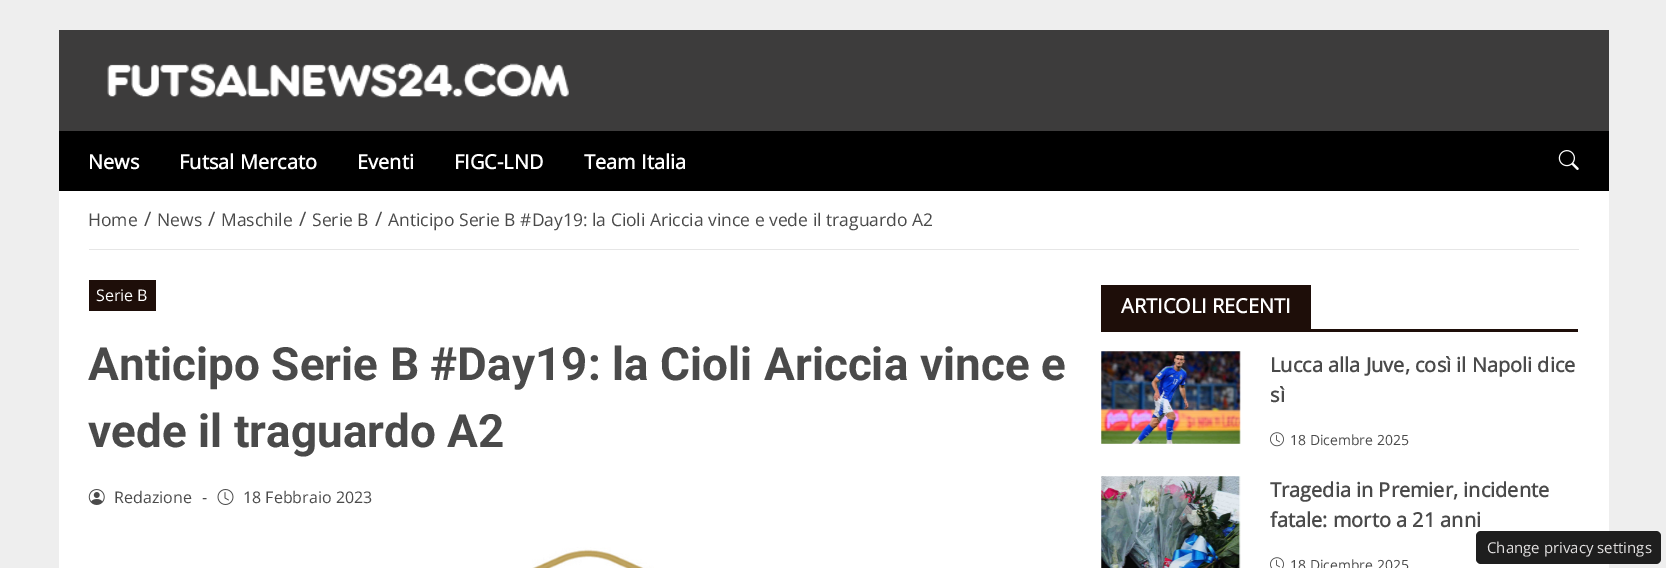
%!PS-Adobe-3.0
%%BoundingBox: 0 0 1666 568
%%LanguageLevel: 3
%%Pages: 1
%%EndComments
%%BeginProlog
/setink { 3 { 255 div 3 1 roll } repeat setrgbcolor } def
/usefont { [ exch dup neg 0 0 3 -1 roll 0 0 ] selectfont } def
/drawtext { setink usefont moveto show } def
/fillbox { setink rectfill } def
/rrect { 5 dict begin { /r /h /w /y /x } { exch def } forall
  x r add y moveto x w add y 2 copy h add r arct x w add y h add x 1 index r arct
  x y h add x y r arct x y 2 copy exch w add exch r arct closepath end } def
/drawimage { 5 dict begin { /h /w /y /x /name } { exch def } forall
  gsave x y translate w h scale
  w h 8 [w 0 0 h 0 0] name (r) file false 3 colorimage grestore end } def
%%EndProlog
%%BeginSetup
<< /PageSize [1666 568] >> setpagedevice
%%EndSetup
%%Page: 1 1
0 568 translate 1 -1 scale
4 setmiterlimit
0 0 1666 568 238 238 238 fillbox
59 30 1550 101 61 60 60 fillbox
(assets/img1.rgb) 107 63 462 35 drawimage
59 131 1550 60 0 0 0 fillbox
(News) 88 169 /OpenSans-Bold 20 255 255 255 drawtext
(Futsal Mercato) 179 169 /OpenSans-Bold 20 255 255 255 drawtext
(Eventi) 357 169 /OpenSans-Bold 20 255 255 255 drawtext
(FIGC-LND) 454 169 /OpenSans-Bold 20 255 255 255 drawtext
(Team Italia) 584 169 /OpenSans-Bold 20 255 255 255 drawtext
(assets/img2.rgb) 1558 150 21 20 drawimage
59 191 1550 377 255 255 255 fillbox
89 249 1490 1 230 230 230 fillbox
(Home) 88 226 /OpenSans-Regular 17.5 74 74 74 drawtext
(/) 144 226 /OpenSans-Regular 20 74 74 74 drawtext
(News) 157 226 /OpenSans-Regular 17.5 74 74 74 drawtext
(/) 208 226 /OpenSans-Regular 20 74 74 74 drawtext
(Maschile) 221 226 /OpenSans-Regular 17.5 74 74 74 drawtext
(/) 299 226 /OpenSans-Regular 20 74 74 74 drawtext
(Serie B) 312 226 /OpenSans-Regular 17.5 74 74 74 drawtext
(/) 375 226 /OpenSans-Regular 20 74 74 74 drawtext
(Anticipo Serie B #Day19: la Cioli Ariccia vince e vede il traguardo A2) 388 226 /OpenSans-Regular 17.5 74 74 74 drawtext
89 280 67 31 30 14 9 fillbox
(Serie B) 96 301 /OpenSans-Regular 16 255 255 255 drawtext
(Anticipo Serie B #Day19: la Cioli Ariccia vince e) 88 380 /Roboto-Bold 45.9 74 74 74 drawtext
(vede il traguardo A2) 88 447 /Roboto-Bold 45.9 74 74 74 drawtext
(assets/img3.rgb) 88 489 17 16 drawimage
(Redazione) 114 503 /OpenSans-Regular 16 74 74 74 drawtext
(-) 202 503 /OpenSans-Regular 16 74 74 74 drawtext
(assets/img4.rgb) 217 489 17 16 drawimage
(18 Febbraio 2023) 243 503 /OpenSans-Regular 16 74 74 74 drawtext
(assets/img5.rgb) 532 547 122 21 drawimage
1101 329 477 3 30 14 9 fillbox
1101 285 210 44 30 14 9 fillbox
(ARTICOLI RECENTI) 1121 313 /OpenSans-Bold 20 255 255 255 drawtext
(assets/img6.rgb) 1101 351 140 93 drawimage
(Lucca alla Juve, così il Napoli dice) 1270 372 /OpenSans-Bold 20 74 74 74 drawtext
(sì) 1270 402 /OpenSans-Bold 20 74 74 74 drawtext
(assets/img7.rgb) 1270 432 14 15 drawimage
(18 Dicembre 2025) 1290 445 /OpenSans-Regular 14 74 74 74 drawtext
(assets/img8.rgb) 1101 476 140 92 drawimage
(Tragedia in Premier, incidente) 1270 497 /OpenSans-Bold 20 74 74 74 drawtext
(fatale: morto a 21 anni) 1270 527 /OpenSans-Bold 20 74 74 74 drawtext
(assets/img9.rgb) 1270 557 14 11 drawimage
(18 Dicembre 2025) 1290 570 /OpenSans-Regular 14 74 74 74 drawtext
30 30 30 setink
1476 531 185 33 5 rrect fill
(Change privacy settings) 1487 553 /OpenSans-Regular 15 227 225 225 drawtext
showpage
%%EOF
